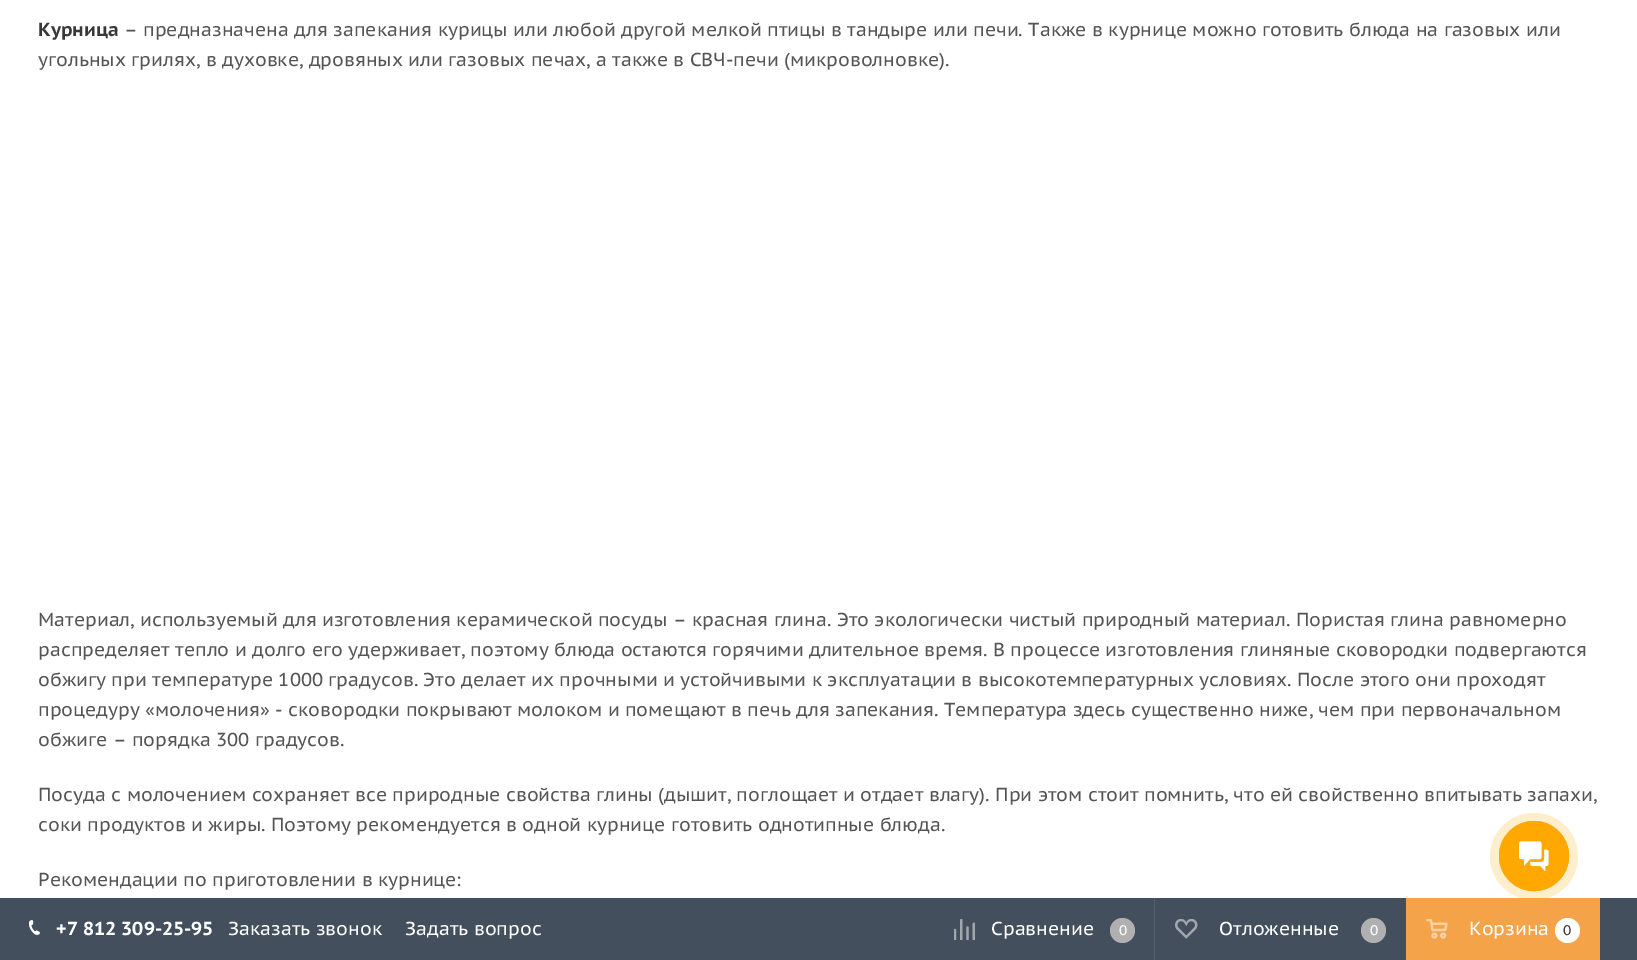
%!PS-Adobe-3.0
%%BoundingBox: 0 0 1637 960
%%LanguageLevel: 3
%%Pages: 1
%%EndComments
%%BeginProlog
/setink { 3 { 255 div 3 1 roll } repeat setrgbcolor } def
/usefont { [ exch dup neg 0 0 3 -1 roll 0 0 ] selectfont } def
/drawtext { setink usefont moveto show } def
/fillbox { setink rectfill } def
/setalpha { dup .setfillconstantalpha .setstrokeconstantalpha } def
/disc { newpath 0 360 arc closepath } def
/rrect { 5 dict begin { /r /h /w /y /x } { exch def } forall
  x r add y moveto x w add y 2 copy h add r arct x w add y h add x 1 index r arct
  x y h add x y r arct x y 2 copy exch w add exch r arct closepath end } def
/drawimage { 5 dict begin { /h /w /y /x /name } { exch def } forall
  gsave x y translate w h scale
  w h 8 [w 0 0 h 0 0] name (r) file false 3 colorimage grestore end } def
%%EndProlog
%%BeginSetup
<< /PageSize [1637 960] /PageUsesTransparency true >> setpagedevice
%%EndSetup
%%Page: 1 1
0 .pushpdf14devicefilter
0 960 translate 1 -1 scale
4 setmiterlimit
0 0 1637 960 255 255 255 fillbox
(Курница) 38 36 /PTSansCaption-Bold 18.75 56 56 56 drawtext
(– предназначена для запекания курицы или любой другой мелкой птицы в тандыре или печи. Также в курнице можно готовить блюда на газовых или) 124 36 /PTSansCaption-Regular 18.75 85 85 85 drawtext
(угольных грилях, в духовке, дровяных или газовых печах, а также в СВЧ-печи \(микроволновке\).) 38 66 /PTSansCaption-Regular 18.75 85 85 85 drawtext
(Материал, используемый для изготовления керамической посуды – красная глина. Это экологически чистый природный материал. Пористая глина равномерно) 38 626 /PTSansCaption-Regular 18.75 85 85 85 drawtext
(распределяет тепло и долго его удерживает, поэтому блюда остаются горячими длительное время. В процессе изготовления глиняные сковородки подвергаются) 38 656 /PTSansCaption-Regular 18.75 85 85 85 drawtext
(обжигу при температуре 1000 градусов. Это делает их прочными и устойчивыми к эксплуатации в высокотемпературных условиях. После этого они проходят) 38 686 /PTSansCaption-Regular 18.75 85 85 85 drawtext
(процедуру «молочения» - сковородки покрывают молоком и помещают в печь для запекания. Температура здесь существенно ниже, чем при первоначальном) 38 716 /PTSansCaption-Regular 18.75 85 85 85 drawtext
(обжиге – порядка 300 градусов.) 38 746 /PTSansCaption-Regular 18.75 85 85 85 drawtext
(Посуда с молочением сохраняет все природные свойства глины \(дышит, поглощает и отдает влагу\). При этом стоит помнить, что ей свойственно впитывать запахи,) 38 801 /PTSansCaption-Regular 18.75 85 85 85 drawtext
(соки продуктов и жиры. Поэтому рекомендуется в одной курнице готовить однотипные блюда.) 38 831 /PTSansCaption-Regular 18.75 85 85 85 drawtext
(Рекомендации по приготовлении в курнице:) 38 886 /PTSansCaption-Regular 18.75 85 85 85 drawtext
0 898 1637 62 68 79 93 fillbox
1406 898 194 62 245 163 72 fillbox
0.2 setalpha
255 168 1 setink
1490 813 88 87 43.5 rrect fill
1 setalpha
1534 856 34.5 disc stroke
1534 856 35 disc fill
(assets/img1.rgb) 1519 841 30 30 drawimage
(assets/img2.rgb) 29 920 11 15 drawimage
(+7 812 309-25-95) 56 935 /PTSansCaption-Bold 18.75 255 255 255 drawtext
(Заказать звонок) 228 935 /PTSansCaption-Regular 18.75 255 255 255 drawtext
(Задать вопрос) 405 935 /PTSansCaption-Regular 18.75 255 255 255 drawtext
(assets/img3.rgb) 954 919 21 21 drawimage
(Сравнение) 991 935 /PTSansCaption-Regular 18.75 255 255 255 drawtext
176 176 176 setink
1122.5 930.5 12.5 disc fill
(0) 1119 935 /PTSansCaption-Regular 14 255 255 255 drawtext
1154 898 1 62 87 97 109 fillbox
(assets/img4.rgb) 1175 919 23 20 drawimage
(Отложенные) 1219 935 /PTSansCaption-Regular 18.75 255 255 255 drawtext
176 176 176 setink
1373.5 930.5 12.5 disc fill
(0) 1370 935 /PTSansCaption-Regular 14 255 255 255 drawtext
(assets/img5.rgb) 1426 919 22 20 drawimage
(Корзина) 1469 935 /PTSansCaption-Regular 18.75 255 255 255 drawtext
1567.5 930.5 12.5 disc fill
(0) 1563 935 /PTSansCaption-Regular 14 56 56 56 drawtext
.poppdf14devicefilter showpage
%%EOF
